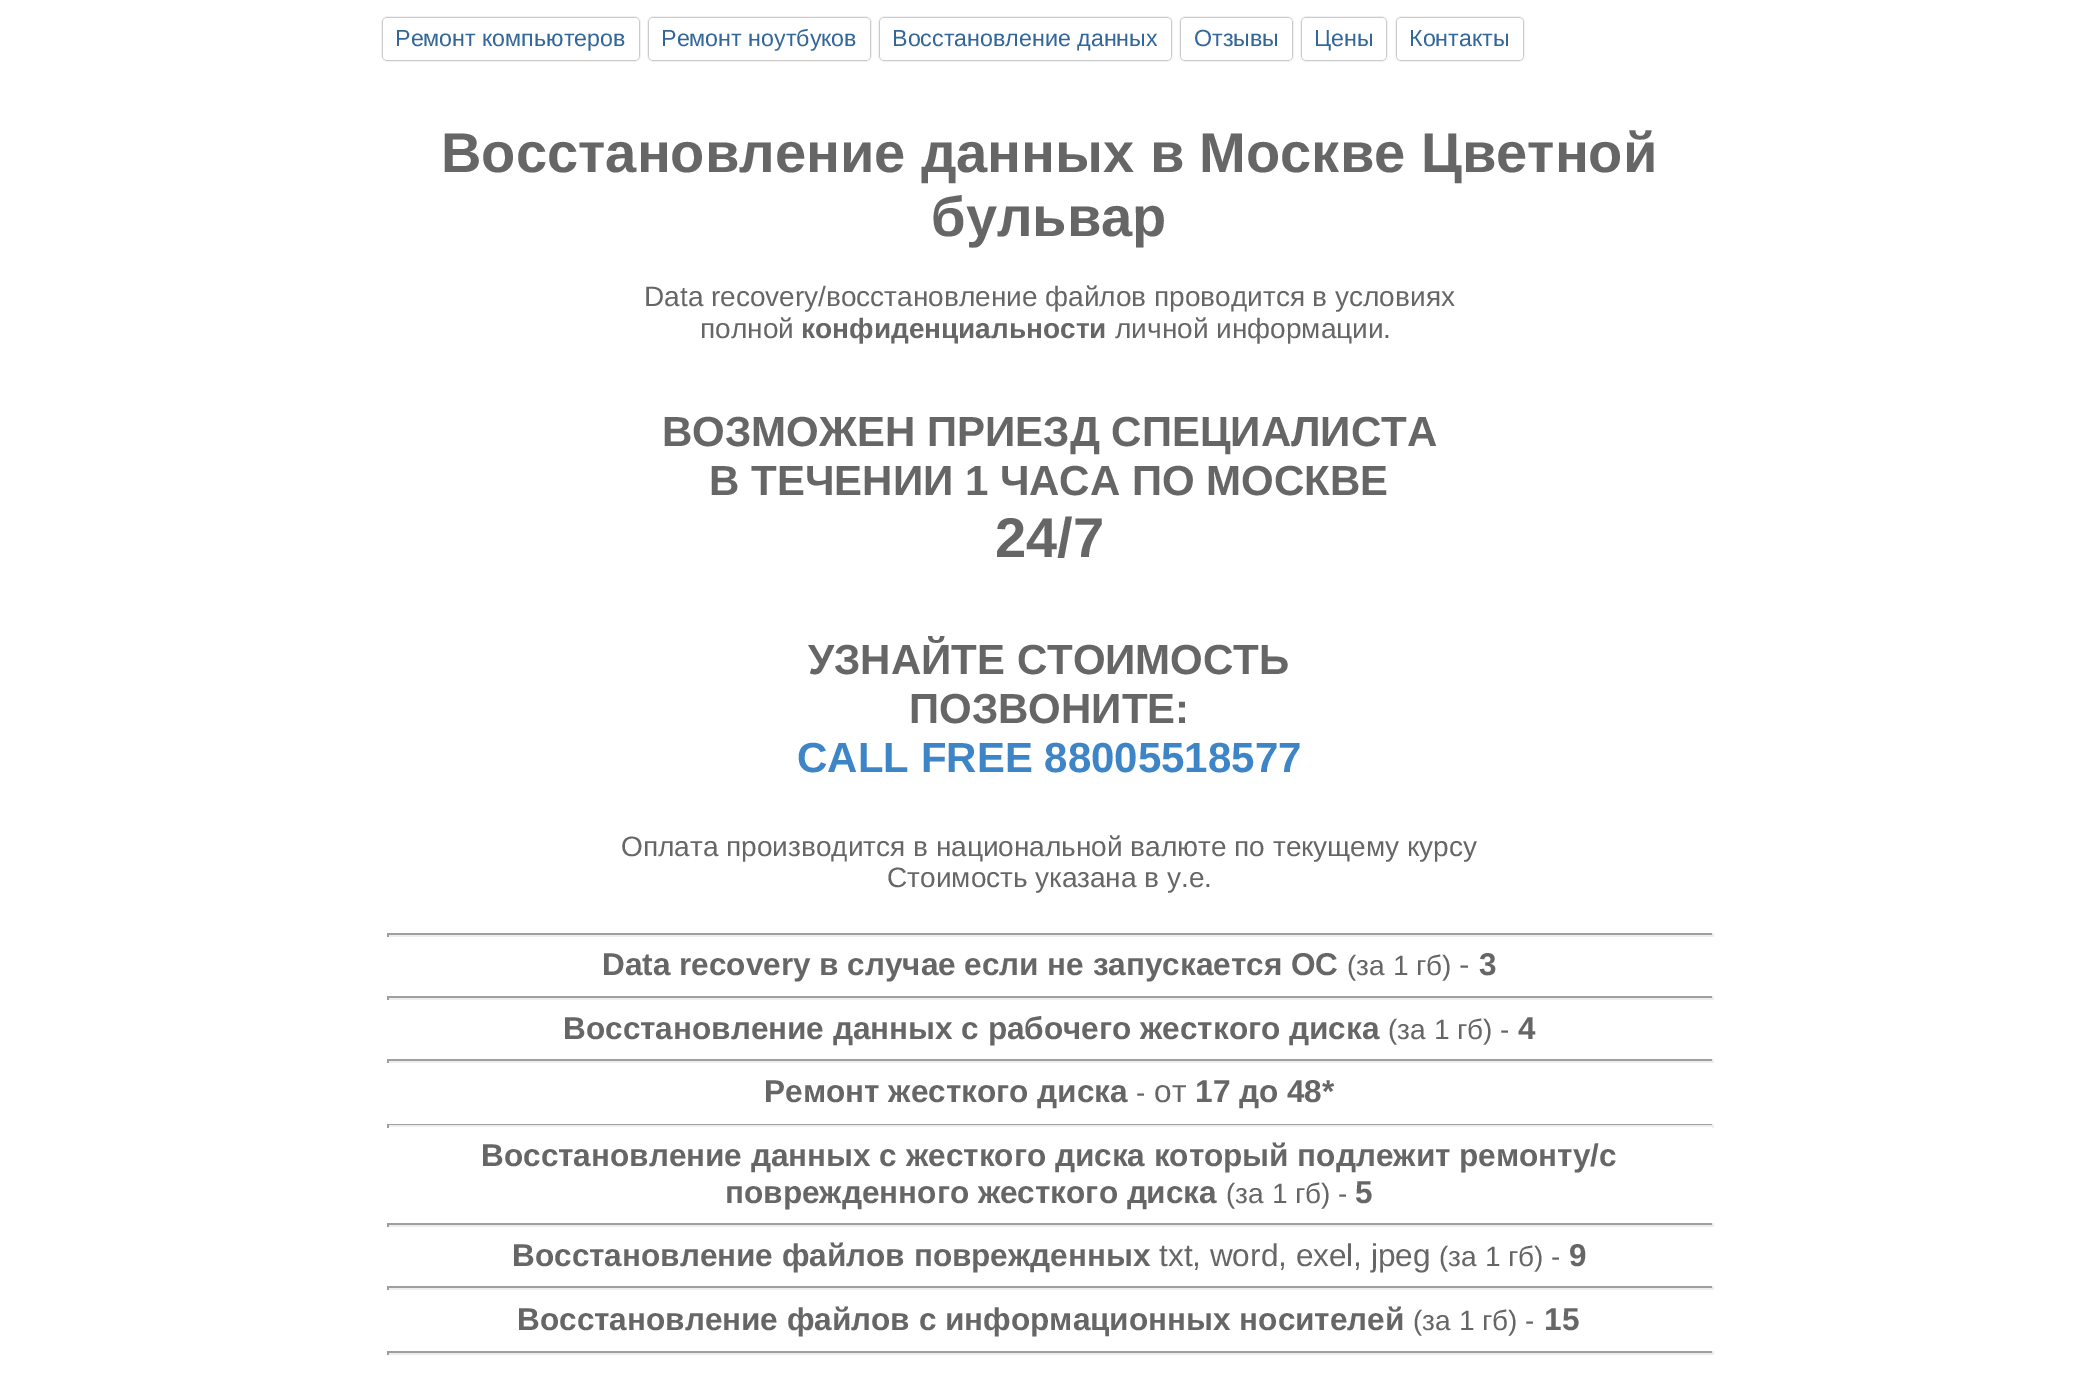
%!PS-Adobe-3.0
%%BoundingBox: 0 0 2098 1384
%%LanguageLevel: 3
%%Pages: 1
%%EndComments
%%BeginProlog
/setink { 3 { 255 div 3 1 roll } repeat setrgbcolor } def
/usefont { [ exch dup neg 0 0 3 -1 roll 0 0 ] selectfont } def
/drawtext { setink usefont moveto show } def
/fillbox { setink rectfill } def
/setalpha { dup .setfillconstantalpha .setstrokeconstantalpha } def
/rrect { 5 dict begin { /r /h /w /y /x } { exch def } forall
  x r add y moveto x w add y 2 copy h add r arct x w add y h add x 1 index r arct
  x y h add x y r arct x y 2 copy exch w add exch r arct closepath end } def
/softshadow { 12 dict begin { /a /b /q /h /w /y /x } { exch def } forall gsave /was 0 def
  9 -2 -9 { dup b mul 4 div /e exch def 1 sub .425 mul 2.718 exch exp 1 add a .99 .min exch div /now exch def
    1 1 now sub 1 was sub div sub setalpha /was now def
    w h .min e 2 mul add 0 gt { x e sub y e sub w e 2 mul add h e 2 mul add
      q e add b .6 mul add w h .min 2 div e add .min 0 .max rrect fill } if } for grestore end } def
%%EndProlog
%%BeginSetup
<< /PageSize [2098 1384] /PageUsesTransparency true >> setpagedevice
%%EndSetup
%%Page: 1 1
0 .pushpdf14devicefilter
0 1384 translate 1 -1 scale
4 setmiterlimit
0 0 2098 1384 255 255 255 fillbox
85 85 85 setink
383 18 256 42 4 1 1 softshadow
255 255 255 setink
383 18 256 42 4 rrect fill
(Ремонт компьютеров) 395 46 /LiberationSans-Regular 23.25 51 102 153 drawtext
85 85 85 setink
649 18 221 42 4 1 1 softshadow
255 255 255 setink
649 18 221 42 4 rrect fill
(Ремонт ноутбуков) 661 46 /LiberationSans-Regular 23.25 51 102 153 drawtext
85 85 85 setink
880 18 291 42 4 1 1 softshadow
255 255 255 setink
880 18 291 42 4 rrect fill
(Восстановление данных) 892 46 /LiberationSans-Regular 23.25 51 102 153 drawtext
85 85 85 setink
1181 18 111 42 4 1 1 softshadow
255 255 255 setink
1181 18 111 42 4 rrect fill
(Отзывы) 1194 46 /LiberationSans-Regular 23.25 51 102 153 drawtext
85 85 85 setink
1302 18 84 42 4 1 1 softshadow
255 255 255 setink
1302 18 84 42 4 rrect fill
(Цены) 1314 46 /LiberationSans-Regular 23.25 51 102 153 drawtext
85 85 85 setink
1397 18 126 42 4 1 1 softshadow
255 255 255 setink
1397 18 126 42 4 rrect fill
(Контакты) 1409 46 /LiberationSans-Regular 23.25 51 102 153 drawtext
(Восстановление данных в Москве Цветной) 441 172 /LiberationSans-Bold 56 102 102 102 drawtext
(бульвар) 931 236 /LiberationSans-Bold 56 102 102 102 drawtext
(Data recovery/восстановление файлов проводится в условиях) 644 306 /LiberationSans-Regular 28 102 102 102 drawtext
(полной) 700 338 /LiberationSans-Regular 28 102 102 102 drawtext
(конфиденциальности) 801 338 /LiberationSans-Bold 28 102 102 102 drawtext
(личной информации.) 1115 338 /LiberationSans-Regular 28 102 102 102 drawtext
(ВОЗМОЖЕН ПРИЕЗД СПЕЦИАЛИСТА) 662 446 /LiberationSans-Bold 42 102 102 102 drawtext
(В ТЕЧЕНИИ 1 ЧАСА ПО МОСКВЕ) 709 495 /LiberationSans-Bold 42 102 102 102 drawtext
(24/7) 995 557 /LiberationSans-Bold 56 102 102 102 drawtext
(УЗНАЙТЕ СТОИМОСТЬ) 808 674 /LiberationSans-Bold 42 102 102 102 drawtext
(ПОЗВОНИТЕ:) 909 723 /LiberationSans-Bold 42 102 102 102 drawtext
(CALL FREE 88005518577) 797 772 /LiberationSans-Bold 42 61 133 198 drawtext
(Оплата производится в национальной валюте по текущему курсу) 621 856 /LiberationSans-Regular 28 102 102 102 drawtext
(Стоимость указана в у.е.) 887 887 /LiberationSans-Regular 28 102 102 102 drawtext
387 933 1326 2 159 159 159 fillbox
1712 933 2 4 238 238 238 fillbox
387 935 1326 2 238 238 238 fillbox
387 933 2 4 159 159 159 fillbox
(Data recovery в случае если не запускается ОС) 602 975 /LiberationSans-Bold 31.5 102 102 102 drawtext
(\(за 1 гб\)) 1347 975 /LiberationSans-Regular 28 102 102 102 drawtext
(-) 1459 975 /LiberationSans-Regular 31.5 102 102 102 drawtext
(3) 1479 975 /LiberationSans-Bold 31.5 102 102 102 drawtext
387 996 1326 2 159 159 159 fillbox
1712 996 2 4 238 238 238 fillbox
387 998 1326 2 238 238 238 fillbox
387 996 2 4 159 159 159 fillbox
(Восстановление данных с рабочего жесткого диска) 563 1039 /LiberationSans-Bold 31.5 102 102 102 drawtext
(\(за 1 гб\) -) 1388 1039 /LiberationSans-Regular 28 102 102 102 drawtext
(4) 1518 1039 /LiberationSans-Bold 31.5 102 102 102 drawtext
387 1059 1326 2 159 159 159 fillbox
1712 1059 2 4 238 238 238 fillbox
387 1061 1326 2 238 238 238 fillbox
387 1059 2 4 159 159 159 fillbox
(Ремонт жесткого диска) 764 1102 /LiberationSans-Bold 31.5 102 102 102 drawtext
(-) 1136 1102 /LiberationSans-Regular 28 102 102 102 drawtext
(от) 1154 1102 /LiberationSans-Regular 31.5 102 102 102 drawtext
(17 до 48*) 1195 1102 /LiberationSans-Bold 31.5 102 102 102 drawtext
387 1124 1326 1 159 159 159 fillbox
1712 1124 2 4 238 238 238 fillbox
387 1125 1326 2 238 238 238 fillbox
387 1124 2 4 159 159 159 fillbox
(Восстановление данных с жесткого диска который подлежит ремонту/с) 481 1166 /LiberationSans-Bold 31.5 102 102 102 drawtext
(поврежденного жесткого диска) 725 1203 /LiberationSans-Bold 31.5 102 102 102 drawtext
(\(за 1 гб\) -) 1226 1203 /LiberationSans-Regular 28 102 102 102 drawtext
(5) 1355 1203 /LiberationSans-Bold 31.5 102 102 102 drawtext
387 1223 1326 2 159 159 159 fillbox
1712 1223 2 4 238 238 238 fillbox
387 1225 1326 2 238 238 238 fillbox
387 1223 2 4 159 159 159 fillbox
(Восстановление файлов поврежденных) 512 1266 /LiberationSans-Bold 31.5 102 102 102 drawtext
(txt, word, exel, jpeg) 1159 1266 /LiberationSans-Regular 31.5 102 102 102 drawtext
(\(за 1 гб\) -) 1439 1266 /LiberationSans-Regular 28 102 102 102 drawtext
(9) 1569 1266 /LiberationSans-Bold 31.5 102 102 102 drawtext
387 1286 1326 2 159 159 159 fillbox
1712 1286 2 4 238 238 238 fillbox
387 1288 1326 2 238 238 238 fillbox
387 1286 2 4 159 159 159 fillbox
(Восстановление файлов с информационных носителей) 517 1330 /LiberationSans-Bold 31.5 102 102 102 drawtext
(\(за 1 гб\) -) 1413 1330 /LiberationSans-Regular 28 102 102 102 drawtext
(15) 1544 1330 /LiberationSans-Bold 31.5 102 102 102 drawtext
387 1351 1326 2 159 159 159 fillbox
1712 1351 2 4 238 238 238 fillbox
387 1353 1326 2 238 238 238 fillbox
387 1351 2 4 159 159 159 fillbox
.poppdf14devicefilter showpage
%%EOF
